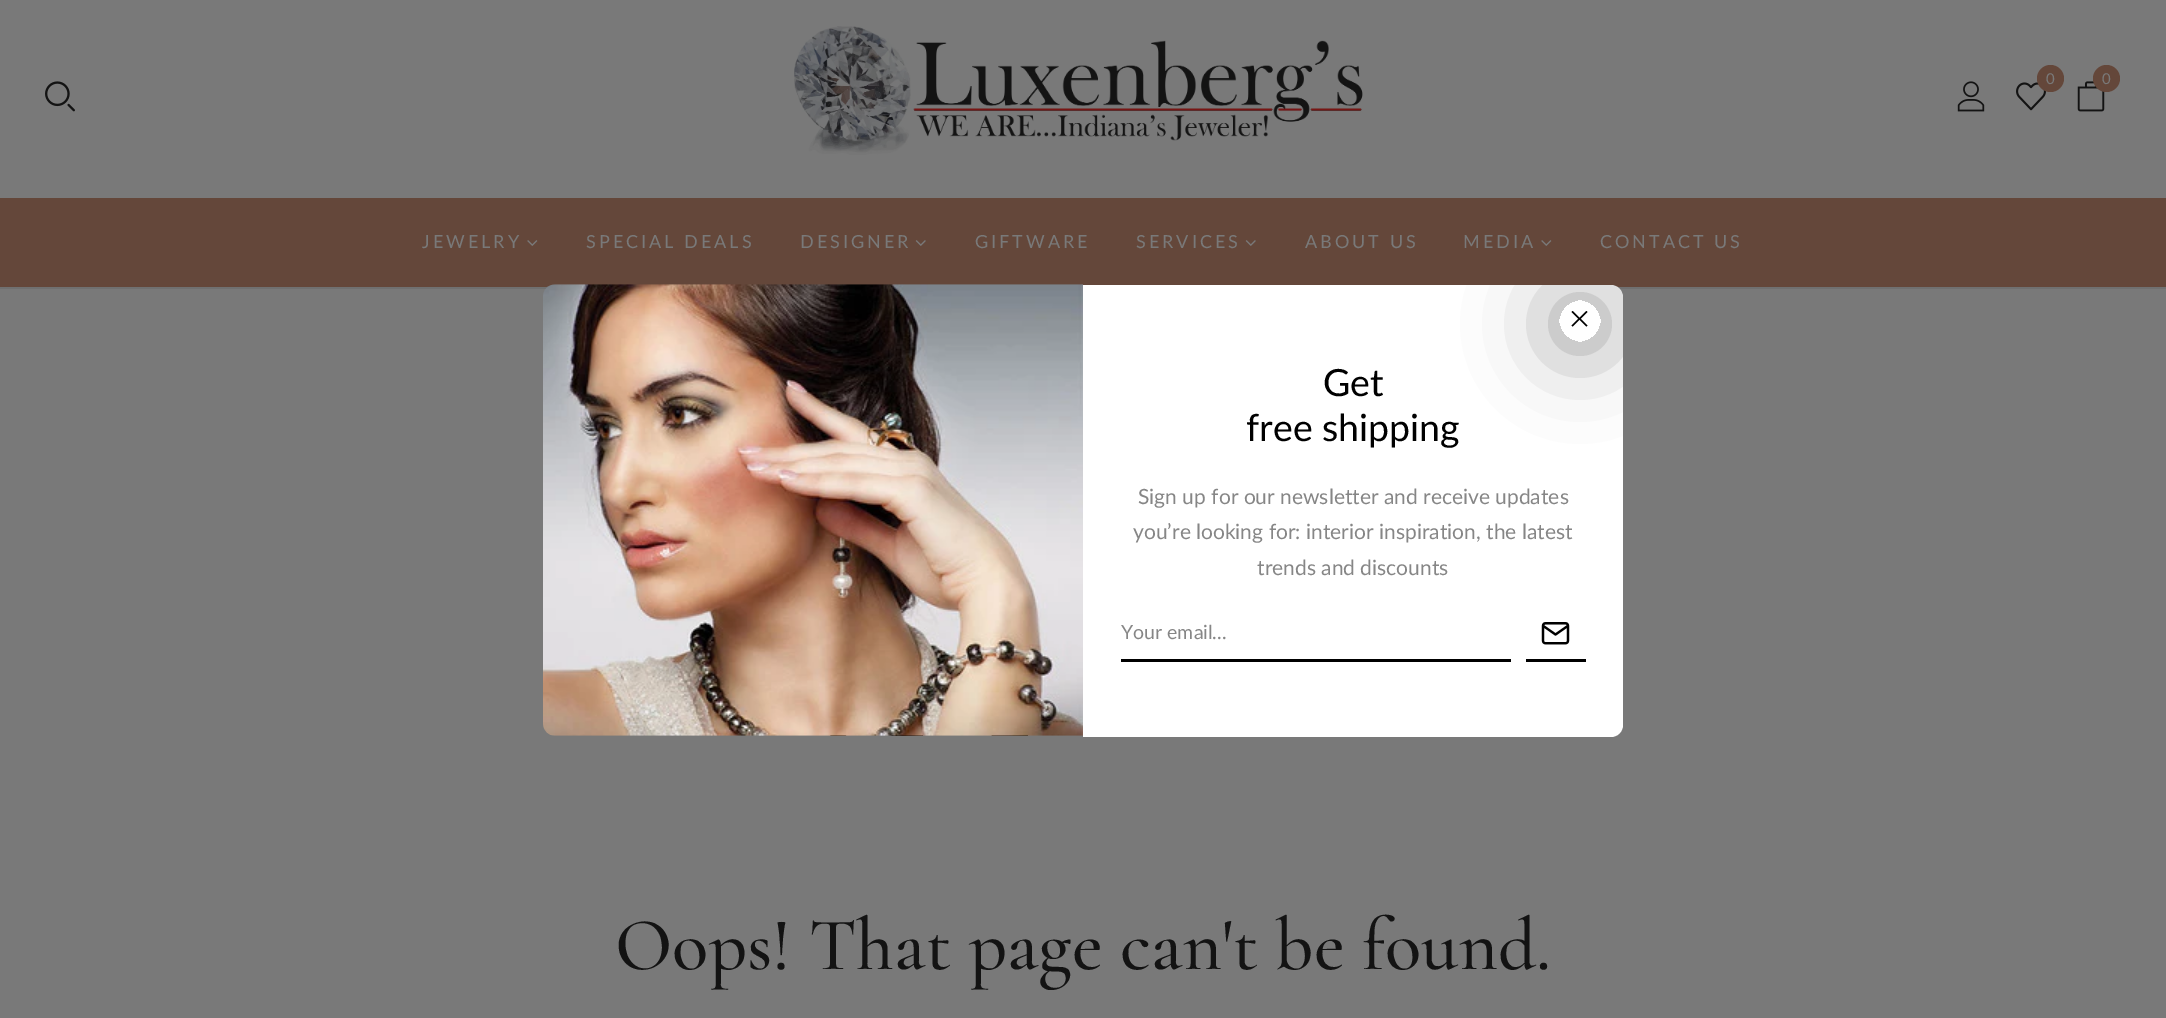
%!PS-Adobe-3.0
%%BoundingBox: 0 0 2166 1018
%%LanguageLevel: 3
%%Pages: 1
%%EndComments
%%BeginProlog
/setink { 3 { 255 div 3 1 roll } repeat setrgbcolor } def
/usefont { [ exch dup neg 0 0 3 -1 roll 0 0 ] selectfont } def
/drawtext { setink usefont moveto show } def
/fillbox { setink rectfill } def
/setalpha { dup .setfillconstantalpha .setstrokeconstantalpha } def
/disc { newpath 0 360 arc closepath } def
/rrect { 5 dict begin { /r /h /w /y /x } { exch def } forall
  x r add y moveto x w add y 2 copy h add r arct x w add y h add x 1 index r arct
  x y h add x y r arct x y 2 copy exch w add exch r arct closepath end } def
/softshadow { 12 dict begin { /a /b /q /h /w /y /x } { exch def } forall gsave /was 0 def
  9 -2 -9 { dup b mul 4 div /e exch def 1 sub .425 mul 2.718 exch exp 1 add a .99 .min exch div /now exch def
    1 1 now sub 1 was sub div sub setalpha /was now def
    w h .min e 2 mul add 0 gt { x e sub y e sub w e 2 mul add h e 2 mul add
      q e add b .6 mul add w h .min 2 div e add .min 0 .max rrect fill } if } for grestore end } def
/drawimage { 5 dict begin { /h /w /y /x /name } { exch def } forall
  gsave x y translate w h scale
  w h 8 [w 0 0 h 0 0] name (r) file false 3 colorimage grestore end } def
%%EndProlog
%%BeginSetup
<< /PageSize [2166 1018] /PageUsesTransparency true >> setpagedevice
%%EndSetup
%%Page: 1 1
0 .pushpdf14devicefilter
0 1018 translate 1 -1 scale
4 setmiterlimit
0 0 2166 1018 121 121 121 fillbox
0 287 2166 2 112 112 112 fillbox
(assets/img1.rgb) 794 26 569 129 drawimage
(assets/img2.rgb) 2016 82 30 29 drawimage
100 71 58 setink
2050.5 78.5 13.5 disc fill
(0) 2046 84 /Lato-Regular 15 121 121 121 drawtext
(assets/img3.rgb) 2077 81 28 31 drawimage
100 71 58 setink
2106.5 78.5 13.5 disc fill
(0) 2102 84 /Lato-Regular 15 121 121 121 drawtext
(assets/img4.rgb) 1957 81 28 31 drawimage
(assets/img5.rgb) 45 81 30 31 drawimage
0 198 2166 89 100 71 58 fillbox
/Lato-Regular 18 usefont
121 121 121 setink
422 248 moveto 3 0 (JEWELRY) ashow
(assets/img6.rgb) 527 240 11 6 drawimage
586 248 moveto 3 0 (SPECIAL DEALS) ashow
800 248 moveto 3 0 (DESIGNER) ashow
(assets/img7.rgb) 915 240 11 6 drawimage
975 248 moveto 3 0 (GIFTWARE) ashow
1136 248 moveto 3 0 (SERVICES) ashow
(assets/img7.rgb) 1245 240 11 6 drawimage
1305 248 moveto 3 0 (ABOUT US) ashow
1463 248 moveto 3 0 (MEDIA) ashow
(assets/img6.rgb) 1541 240 11 6 drawimage
1600 248 moveto 3 0 (CONTACT US) ashow
(assets/img8.rgb) 543 284 540 452 drawimage
255 255 255 setink
1083 285 moveto 1611 285 lineto 1617.5 285 1623 290.5 1623 297 curveto 1623 725 lineto 1623 731.5 1617.5 737 1611 737 curveto 1083 737 lineto closepath fill
(Get) 1323 396 /Lato-Regular 37.5 0 0 0 drawtext
(free shipping) 1246 441 /Lato-Regular 37.5 0 0 0 drawtext
(Sign up for our newsletter and receive updates) 1138 504 /Lato-Regular 21 134 134 134 drawtext
(you’re looking for: interior inspiration, the latest) 1133 539 /Lato-Regular 21 134 134 134 drawtext
(trends and discounts) 1257 575 /Lato-Regular 21 134 134 134 drawtext
1121 659 390 3 0 0 0 fillbox
(Your email...) 1121 639 /Lato-Regular 19.5 134 134 134 drawtext
1526 659 60 3 0 0 0 fillbox
(assets/img9.rgb) 1541 622 29 23 drawimage
gsave
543 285 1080 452 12 rrect clip newpath
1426 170 moveto 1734 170 lineto 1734 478 lineto 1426 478 lineto closepath 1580 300 moveto 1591.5 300 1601 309.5 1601 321 curveto 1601 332.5 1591.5 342 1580 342 curveto 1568.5 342 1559 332.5 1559 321 curveto 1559 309.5 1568.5 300 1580 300 curveto closepath eoclip newpath
1559 303 42 42 21 44 0.4 softshadow
grestore
1571.5 325.5 moveto 1586.5 311 lineto 1587.5 312 lineto 1572.5 326.5 lineto closepath fill
1572.5 311 moveto 1587.5 325.5 lineto 1586.5 326.5 lineto 1571.5 312 lineto closepath fill
(Oops! That page can't be found.) 615 969 /CormorantGaramond-Medium 75 19 19 19 drawtext
.poppdf14devicefilter showpage
%%EOF
